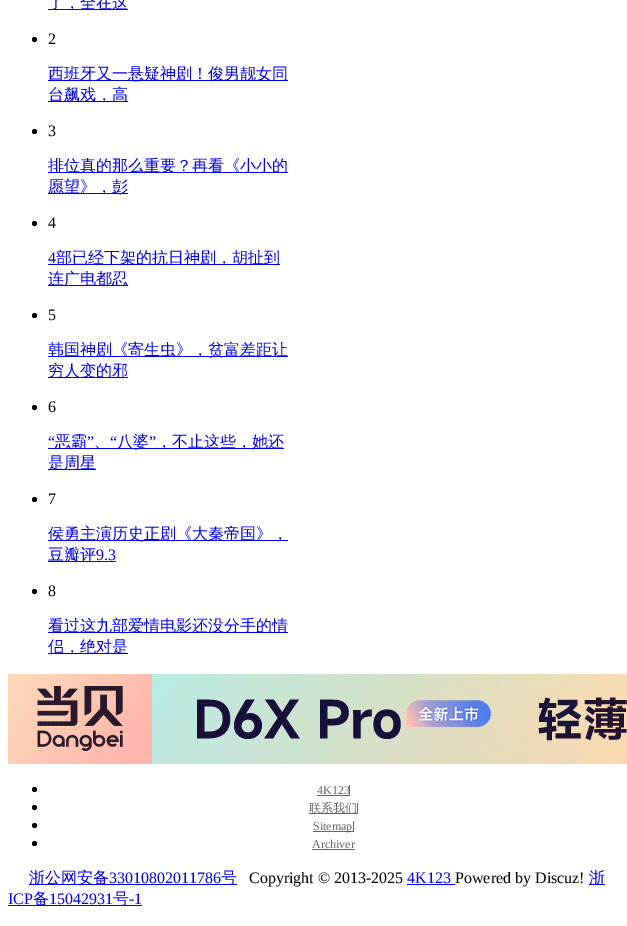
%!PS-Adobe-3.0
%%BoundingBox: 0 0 627 926
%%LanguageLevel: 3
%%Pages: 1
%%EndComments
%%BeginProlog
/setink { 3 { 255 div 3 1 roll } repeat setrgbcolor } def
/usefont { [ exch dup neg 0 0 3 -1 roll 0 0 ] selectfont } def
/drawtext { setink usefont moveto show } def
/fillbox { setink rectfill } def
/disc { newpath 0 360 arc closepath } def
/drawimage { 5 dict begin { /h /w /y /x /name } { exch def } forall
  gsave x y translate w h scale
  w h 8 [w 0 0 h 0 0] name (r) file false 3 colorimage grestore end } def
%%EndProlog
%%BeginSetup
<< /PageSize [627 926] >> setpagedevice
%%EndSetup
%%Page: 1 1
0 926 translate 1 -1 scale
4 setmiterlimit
0 0 627 926 255 255 255 fillbox
48 9 80 1 0 0 238 fillbox
(了，全在这) 48 8 /WenQuanYiZenHei-Medium 16 0 0 238 drawtext
0 0 0 setink
34.5 39.5 2.5 disc fill
(2) 48 44 /LiberationSerif-Regular 16 0 0 0 drawtext
48 80 240 1 0 0 238 fillbox
(西班牙又一悬疑神剧！俊男靓女同) 48 79 /WenQuanYiZenHei-Medium 16 0 0 238 drawtext
48 101 80 1 0 0 238 fillbox
(台飙戏，高) 48 100 /WenQuanYiZenHei-Medium 16 0 0 238 drawtext
0 0 0 setink
34.5 131.5 2.5 disc fill
(3) 48 136 /LiberationSerif-Regular 16 0 0 0 drawtext
48 172 240 1 0 0 238 fillbox
(排位真的那么重要？再看《小小的) 48 171 /WenQuanYiZenHei-Medium 16 0 0 238 drawtext
48 193 80 1 0 0 238 fillbox
(愿望》，彭) 48 192 /WenQuanYiZenHei-Medium 16 0 0 238 drawtext
0 0 0 setink
34.5 223.5 2.5 disc fill
(4) 48 228 /LiberationSerif-Regular 16 0 0 0 drawtext
(4) 48 263 /LiberationSerif-Regular 16 0 0 238 drawtext
48 264 232 1 0 0 238 fillbox
(部已经下架的抗日神剧，胡扯到) 56 263 /WenQuanYiZenHei-Medium 16 0 0 238 drawtext
48 285 80 1 0 0 238 fillbox
(连广电都忍) 48 284 /WenQuanYiZenHei-Medium 16 0 0 238 drawtext
0 0 0 setink
34.5 315.5 2.5 disc fill
(5) 48 320 /LiberationSerif-Regular 16 0 0 0 drawtext
48 356 240 1 0 0 238 fillbox
(韩国神剧《寄生虫》，贫富差距让) 48 355 /WenQuanYiZenHei-Medium 16 0 0 238 drawtext
48 377 80 1 0 0 238 fillbox
(穷人变的邪) 48 376 /WenQuanYiZenHei-Medium 16 0 0 238 drawtext
0 0 0 setink
34.5 407.5 2.5 disc fill
(6) 48 412 /LiberationSerif-Regular 16 0 0 0 drawtext
(“) 48 447 /LiberationSerif-Regular 16 0 0 238 drawtext
48 448 236 1 0 0 238 fillbox
(恶霸) 55 447 /WenQuanYiZenHei-Medium 16 0 0 238 drawtext
(”) 87 447 /LiberationSerif-Regular 16 0 0 238 drawtext
(“) 110 447 /LiberationSerif-Regular 16 0 0 238 drawtext
(八婆) 117 447 /WenQuanYiZenHei-Medium 16 0 0 238 drawtext
(”) 149 447 /LiberationSerif-Regular 16 0 0 238 drawtext
(，不止这些，她还) 156 447 /WenQuanYiZenHei-Medium 16 0 0 238 drawtext
(、) 94 447 /WenQuanYiZenHei-Medium 16 0 0 238 drawtext
48 469 48 1 0 0 238 fillbox
(是周星) 48 468 /WenQuanYiZenHei-Medium 16 0 0 238 drawtext
0 0 0 setink
34.5 499.5 2.5 disc fill
(7) 48 504 /LiberationSerif-Regular 16 0 0 0 drawtext
48 540 240 1 0 0 238 fillbox
(侯勇主演历史正剧《大秦帝国》，) 48 539 /WenQuanYiZenHei-Medium 16 0 0 238 drawtext
48 561 68 1 0 0 238 fillbox
(豆瓣评) 48 560 /WenQuanYiZenHei-Medium 16 0 0 238 drawtext
(9.3) 96 560 /LiberationSerif-Regular 16 0 0 238 drawtext
0 0 0 setink
34.5 591.5 2.5 disc fill
(8) 48 596 /LiberationSerif-Regular 16 0 0 0 drawtext
48 632 240 1 0 0 238 fillbox
(看过这九部爱情电影还没分手的情) 48 631 /WenQuanYiZenHei-Medium 16 0 0 238 drawtext
48 653 80 1 0 0 238 fillbox
(侣，绝对是) 48 652 /WenQuanYiZenHei-Medium 16 0 0 238 drawtext
(assets/img1.rgb) 8 674 619 90 drawimage
0 0 0 setink
34.5 789.5 2.5 disc fill
349 785 1 11 102 102 102 fillbox
(4K123) 317 794 /LiberationSerif-Regular 12 102 102 102 drawtext
317 795 32 1 102 102 102 fillbox
0 0 0 setink
34.5 807.5 2.5 disc fill
357 803 1 11 102 102 102 fillbox
309 813 48 1 102 102 102 fillbox
(联系我们) 309 812 /WenQuanYiZenHei-Medium 12 102 102 102 drawtext
0 0 0 setink
34.5 825.5 2.5 disc fill
353 821 1 11 102 102 102 fillbox
313 831 40 1 102 102 102 fillbox
(Sitemap) 313 830 /LiberationSerif-Regular 12 102 102 102 drawtext
0 0 0 setink
34.5 843.5 2.5 disc fill
(Archiver) 312 848 /LiberationSerif-Regular 12 102 102 102 drawtext
312 849 43 1 102 102 102 fillbox
29 884 208 1 0 0 238 fillbox
(浙公网安备) 29 883 /WenQuanYiZenHei-Medium 16 0 0 238 drawtext
(33010802011786) 109 883 /LiberationSerif-Regular 16 0 0 238 drawtext
(号) 221 883 /WenQuanYiZenHei-Medium 16 0 0 238 drawtext
(Copyright © 2013-2025) 249 883 /LiberationSerif-Regular 16 0 0 0 drawtext
(4K123) 407 883 /LiberationSerif-Regular 16 0 0 238 drawtext
407 884 48 1 0 0 238 fillbox
(Powered by Discuz!) 455 883 /LiberationSerif-Regular 16 0 0 0 drawtext
589 884 16 1 0 0 238 fillbox
(浙) 589 883 /WenQuanYiZenHei-Medium 16 0 0 238 drawtext
(ICP) 8 904 /LiberationSerif-Regular 16 0 0 238 drawtext
8 905 134 1 0 0 238 fillbox
(备) 33 904 /WenQuanYiZenHei-Medium 16 0 0 238 drawtext
(15042931) 49 904 /LiberationSerif-Regular 16 0 0 238 drawtext
(号) 113 904 /WenQuanYiZenHei-Medium 16 0 0 238 drawtext
(-1) 129 904 /LiberationSerif-Regular 16 0 0 238 drawtext
showpage
%%EOF
